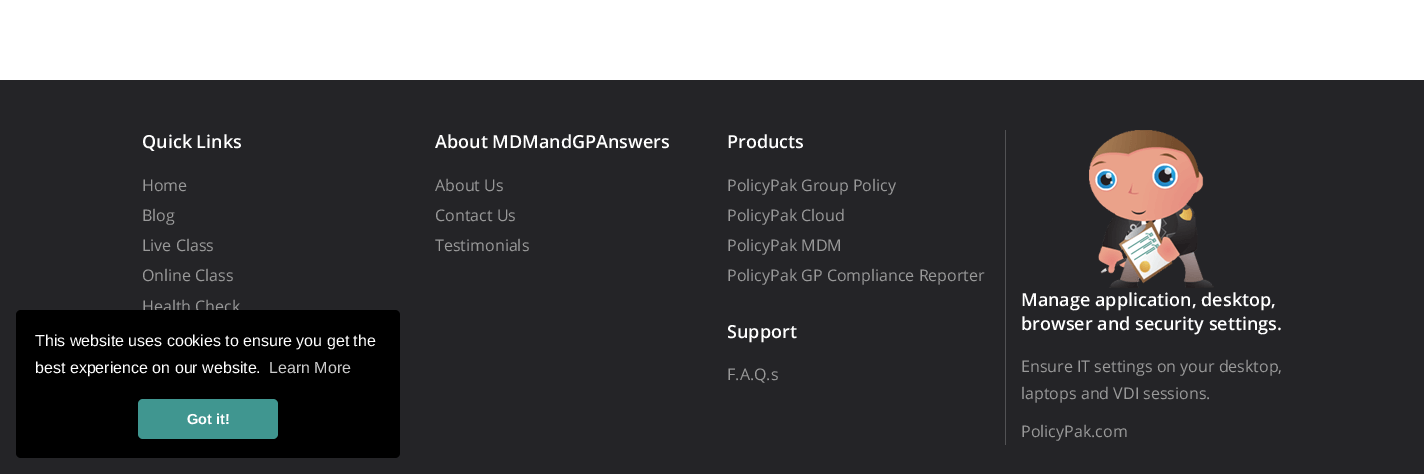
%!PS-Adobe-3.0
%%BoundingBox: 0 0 1424 474
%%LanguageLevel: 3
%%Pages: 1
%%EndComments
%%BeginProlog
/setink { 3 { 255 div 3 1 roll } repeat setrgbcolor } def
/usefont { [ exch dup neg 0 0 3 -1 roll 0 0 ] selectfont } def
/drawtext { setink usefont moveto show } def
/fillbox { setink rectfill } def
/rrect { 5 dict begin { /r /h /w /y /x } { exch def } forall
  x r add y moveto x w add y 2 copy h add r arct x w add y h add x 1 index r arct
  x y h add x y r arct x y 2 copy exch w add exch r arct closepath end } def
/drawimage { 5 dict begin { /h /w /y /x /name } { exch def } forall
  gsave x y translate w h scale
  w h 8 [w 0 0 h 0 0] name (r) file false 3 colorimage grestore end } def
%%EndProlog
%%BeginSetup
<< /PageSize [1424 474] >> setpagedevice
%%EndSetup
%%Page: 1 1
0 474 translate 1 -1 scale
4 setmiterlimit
0 0 1424 474 255 255 255 fillbox
0 80 1424 394 36 36 39 fillbox
(Quick Links) 142 148 /OpenSans-SemiBold 18 255 255 255 drawtext
(Home) 142 191 /OpenSans-Regular 16 153 153 153 drawtext
(Blog) 142 221 /OpenSans-Regular 16 153 153 153 drawtext
(Live Class) 142 251 /OpenSans-Regular 16 153 153 153 drawtext
(Online Class) 142 281 /OpenSans-Regular 16 153 153 153 drawtext
(Health Check) 142 312 /OpenSans-Regular 16 153 153 153 drawtext
(About MDMandGPAnswers) 435 148 /OpenSans-SemiBold 18 255 255 255 drawtext
(About Us) 435 191 /OpenSans-Regular 16 153 153 153 drawtext
(Contact Us) 435 221 /OpenSans-Regular 16 153 153 153 drawtext
(Testimonials) 435 251 /OpenSans-Regular 16 153 153 153 drawtext
(Products) 727 148 /OpenSans-SemiBold 18 255 255 255 drawtext
(PolicyPak Group Policy) 727 191 /OpenSans-Regular 16 153 153 153 drawtext
(PolicyPak Cloud) 727 221 /OpenSans-Regular 16 153 153 153 drawtext
(PolicyPak MDM) 727 251 /OpenSans-Regular 16 153 153 153 drawtext
(PolicyPak GP Compliance Reporter) 727 281 /OpenSans-Regular 16 153 153 153 drawtext
(Support) 727 338 /OpenSans-SemiBold 18 255 255 255 drawtext
(F.A.Q.s) 727 380 /OpenSans-Regular 16 153 153 153 drawtext
1005 130 1 315 82 82 84 fillbox
(assets/img1.rgb) 1089 130 125 158 drawimage
(Manage application, desktop,) 1021 306 /OpenSans-SemiBold 18 255 255 255 drawtext
(browser and security settings.) 1021 330 /OpenSans-SemiBold 18 255 255 255 drawtext
(Ensure IT settings on your desktop,) 1021 372 /OpenSans-Regular 16 153 153 153 drawtext
(laptops and VDI sessions.) 1021 399 /OpenSans-Regular 16 153 153 153 drawtext
(PolicyPak.com) 1021 437 /OpenSans-Regular 16 153 153 153 drawtext
0 0 0 setink
16 310 384 148 5 rrect fill
(This website uses cookies to ensure you get the) 35 346 /LiberationSans-Regular 16 255 255 255 drawtext
(best experience on our website.) 35 373 /LiberationSans-Regular 16 255 255 255 drawtext
(Learn More) 269 373 /LiberationSans-Regular 16 204 204 204 drawtext
64 150 144 setink
138 399 140 40 5 rrect fill
(Got it!) 187 424 /LiberationSans-Bold 14.5 255 255 255 drawtext
showpage
%%EOF
